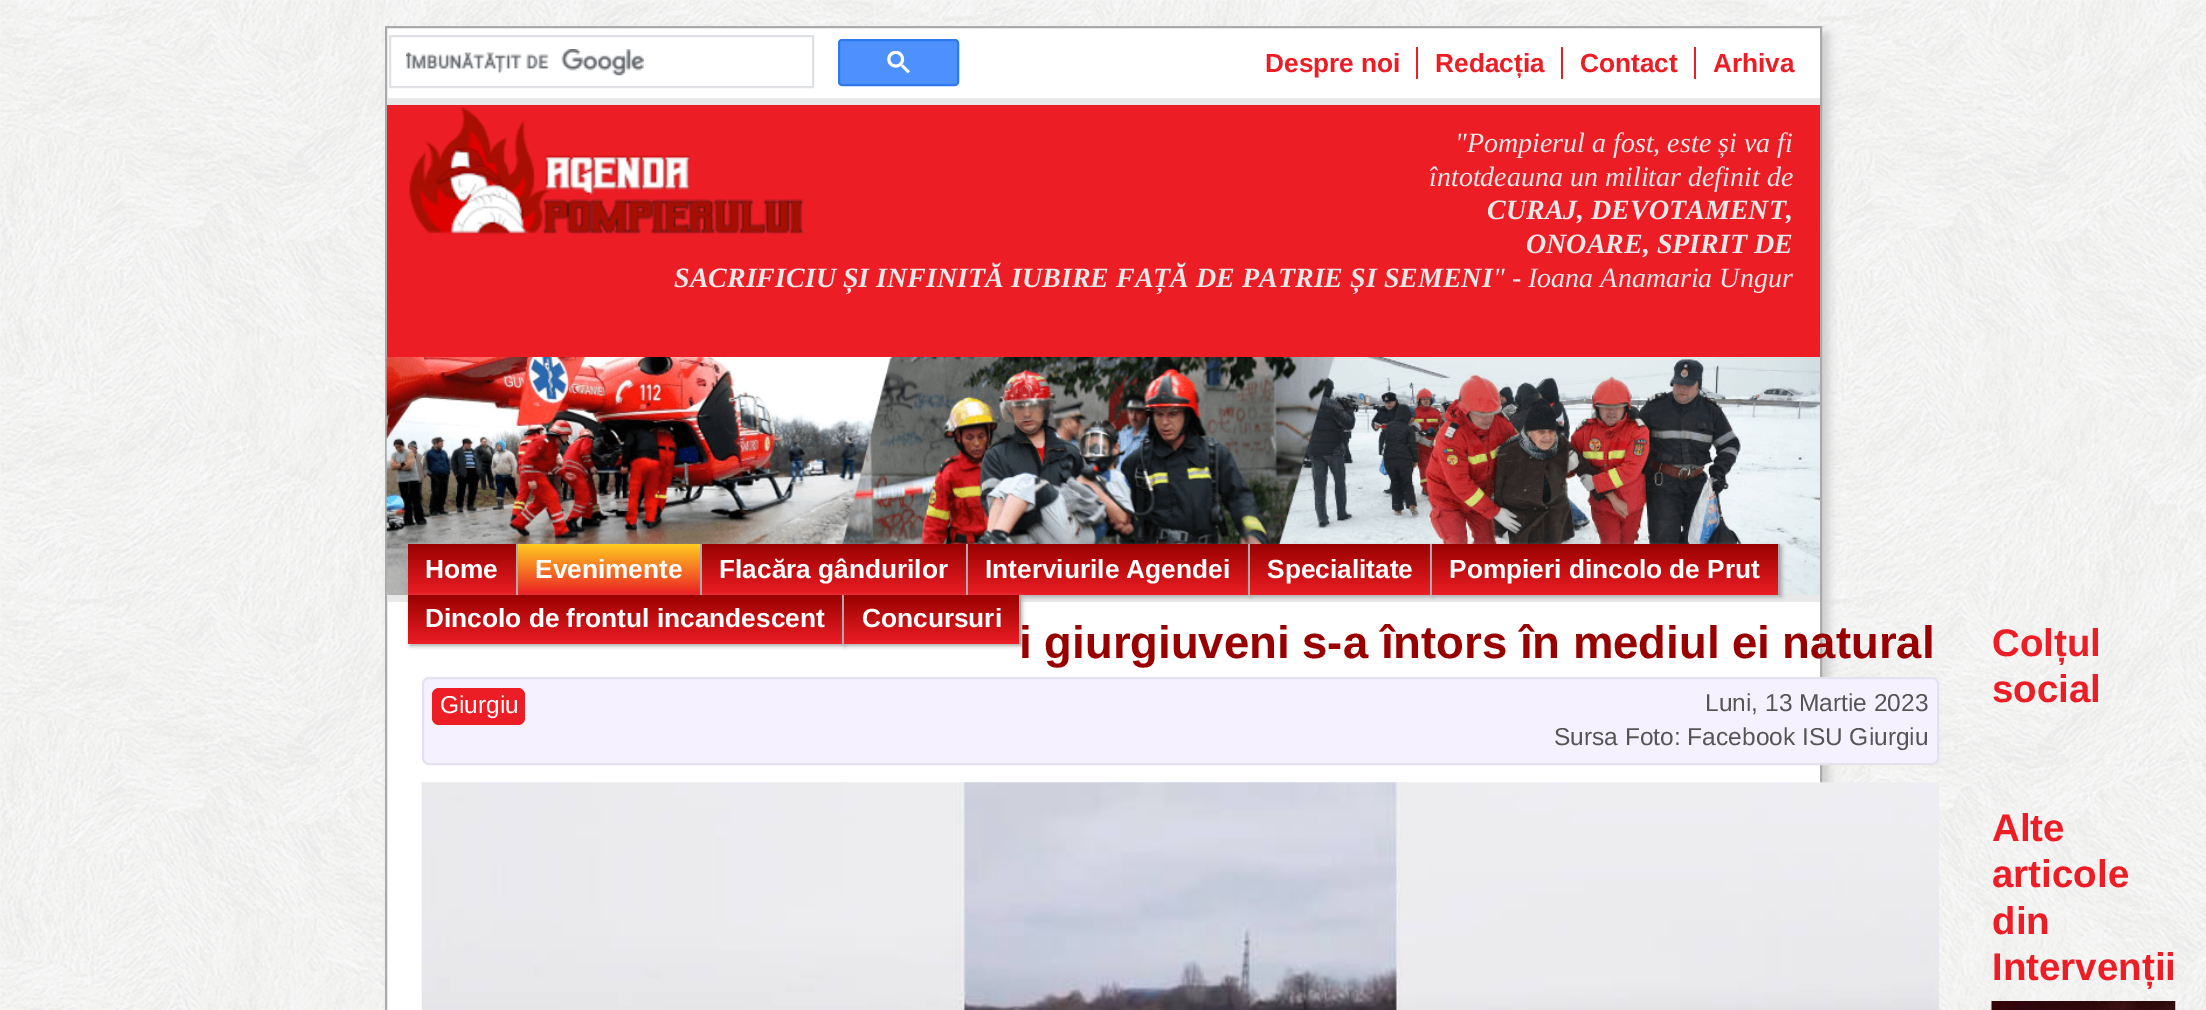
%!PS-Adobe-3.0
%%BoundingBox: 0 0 2206 1010
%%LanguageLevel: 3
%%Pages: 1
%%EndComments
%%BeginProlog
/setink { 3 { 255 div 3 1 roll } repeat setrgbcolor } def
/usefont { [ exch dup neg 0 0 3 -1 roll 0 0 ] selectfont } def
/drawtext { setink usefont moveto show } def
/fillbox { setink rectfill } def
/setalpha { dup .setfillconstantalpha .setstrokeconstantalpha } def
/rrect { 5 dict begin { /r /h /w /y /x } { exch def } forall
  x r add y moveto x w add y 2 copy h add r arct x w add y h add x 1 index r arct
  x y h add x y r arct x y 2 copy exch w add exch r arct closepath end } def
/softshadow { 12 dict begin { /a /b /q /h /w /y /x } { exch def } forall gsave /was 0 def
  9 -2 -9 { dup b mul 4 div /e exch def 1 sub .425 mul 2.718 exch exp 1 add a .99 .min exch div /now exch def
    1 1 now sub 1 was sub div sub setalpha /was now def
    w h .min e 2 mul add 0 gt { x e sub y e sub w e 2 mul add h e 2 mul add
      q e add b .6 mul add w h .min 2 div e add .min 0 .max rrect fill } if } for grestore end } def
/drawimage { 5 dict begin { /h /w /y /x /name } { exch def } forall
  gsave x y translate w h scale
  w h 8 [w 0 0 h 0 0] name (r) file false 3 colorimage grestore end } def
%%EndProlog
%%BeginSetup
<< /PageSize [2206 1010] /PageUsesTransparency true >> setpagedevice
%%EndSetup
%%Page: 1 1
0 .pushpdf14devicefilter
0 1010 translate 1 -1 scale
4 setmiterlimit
0 0 2206 1010 255 255 255 fillbox
(assets/img1.rgb) 0 0 2206 1010 drawimage
204 204 204 setink
392 33 1437 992 0 5 1 softshadow
255 255 255 setink
386 27 moveto 1821 27 lineto 1821 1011 lineto 386 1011 lineto closepath gsave fill grestore
170 170 170 setink
2 setlinewidth
stroke
223 225 229 setink
390 36 423 51 rectstroke
(assets/img2.rgb) 406 49 238 27 drawimage
77 144 254 setink
839 40 119 45 3 rrect gsave fill grestore
48 121 237 setink
stroke
(assets/img3.rgb) 887 51 23 23 drawimage
(Despre noi) 1265 72 /LiberationSans-Bold 26.25 236 29 37 drawtext
1416 47 2 32 236 29 37 fillbox
(Redacția) 1435 72 /LiberationSans-Bold 26.25 236 29 37 drawtext
(Contact) 1580 72 /LiberationSans-Bold 26.25 236 29 37 drawtext
1561 47 2 32 236 29 37 fillbox
1694 47 2 32 236 29 37 fillbox
(Arhiva) 1713 72 /LiberationSans-Bold 26.25 236 29 37 drawtext
387 105 1433 252 236 29 37 fillbox
(assets/img4.rgb) 386 357 1434 238 drawimage
387 98 1433 7 232 232 232 fillbox
387 595 1433 7 232 232 232 fillbox
(assets/img5.rgb) 409 107 395 128 drawimage
("Pompierul a fost, este și va fi) 1455 152 /LiberationSerif-Italic 28 232 232 232 drawtext
(întotdeauna un militar definit de) 1429 186 /LiberationSerif-Italic 28 232 232 232 drawtext
(CURAJ, DEVOTAMENT,) 1487 219 /LiberationSerif-BoldItalic 28 232 232 232 drawtext
(ONOARE, SPIRIT DE) 1526 253 /LiberationSerif-BoldItalic 28 232 232 232 drawtext
(SACRIFICIU ȘI INFINITĂ IUBIRE FAȚĂ DE PATRIE ȘI SEMENI) 674 287 /LiberationSerif-BoldItalic 28 232 232 232 drawtext
(" - Ioana Anamaria Ungur) 1493 287 /LiberationSerif-Italic 28 232 232 232 drawtext
170 170 170 setink
410 546 110 51 0 2 1 softshadow
gsave 408 544 moveto 516 544 lineto 516 595 lineto 408 595 lineto closepath clip newpath
<< /ShadingType 2 /ColorSpace /DeviceRGB /Coords [462 544 462 595] /Extend [true true] /Function << /FunctionType 2 /Domain [0 1] /C0 [0.6 0.004 0] /C1 [0.925 0.114 0.145] /N 1 >> >> shfill grestore
516 544 2 16 170 170 170 fillbox
(Home) 425 578 /LiberationSans-Bold 26.25 255 255 255 drawtext
170 170 170 setink
520 546 184 51 0 2 1 softshadow
gsave 518 544 moveto 700 544 lineto 700 595 lineto 518 595 lineto closepath clip newpath
<< /ShadingType 2 /ColorSpace /DeviceRGB /Coords [609 544 609 595] /Extend [true true] /Function << /FunctionType 2 /Domain [0 1] /C0 [1 0.8 0.133] /C1 [0.925 0.114 0.145] /N 1 >> >> shfill grestore
700 544 2 51 170 170 170 fillbox
(Evenimente) 535 578 /LiberationSans-Bold 26.25 255 255 255 drawtext
170 170 170 setink
704 546 266 51 0 2 1 softshadow
gsave 702 544 moveto 966 544 lineto 966 595 lineto 702 595 lineto closepath clip newpath
<< /ShadingType 2 /ColorSpace /DeviceRGB /Coords [834 544 834 595] /Extend [true true] /Function << /FunctionType 2 /Domain [0 1] /C0 [0.6 0.004 0] /C1 [0.925 0.114 0.145] /N 1 >> >> shfill grestore
966 544 2 51 170 170 170 fillbox
(Flacăra gândurilor) 719 578 /LiberationSans-Bold 26.25 255 255 255 drawtext
170 170 170 setink
970 546 281 51 0 2 1 softshadow
gsave 968 544 moveto 1248 544 lineto 1248 595 lineto 968 595 lineto closepath clip newpath
<< /ShadingType 2 /ColorSpace /DeviceRGB /Coords [1108 544 1108 595] /Extend [true true] /Function << /FunctionType 2 /Domain [0 1] /C0 [0.6 0.004 0] /C1 [0.925 0.114 0.145] /N 1 >> >> shfill grestore
1248 544 2 51 170 170 170 fillbox
(Interviurile Agendei) 985 578 /LiberationSans-Bold 26.25 255 255 255 drawtext
170 170 170 setink
1251 546 182 51 0 2 1 softshadow
gsave 1250 544 moveto 1430 544 lineto 1430 595 lineto 1250 595 lineto closepath clip newpath
<< /ShadingType 2 /ColorSpace /DeviceRGB /Coords [1340 544 1340 595] /Extend [true true] /Function << /FunctionType 2 /Domain [0 1] /C0 [0.6 0.004 0] /C1 [0.925 0.114 0.145] /N 1 >> >> shfill grestore
1430 544 2 51 170 170 170 fillbox
(Specialitate) 1267 578 /LiberationSans-Bold 26.25 255 255 255 drawtext
170 170 170 setink
1433 546 349 51 0 2 1 softshadow
gsave 1432 544 moveto 1778 544 lineto 1778 595 lineto 1432 595 lineto closepath clip newpath
<< /ShadingType 2 /ColorSpace /DeviceRGB /Coords [1605 544 1605 595] /Extend [true true] /Function << /FunctionType 2 /Domain [0 1] /C0 [0.6 0.004 0] /C1 [0.925 0.114 0.145] /N 1 >> >> shfill grestore
1778 544 2 51 170 170 170 fillbox
(Pompieri dincolo de Prut) 1449 578 /LiberationSans-Bold 26.25 255 255 255 drawtext
170 170 170 setink
410 597 435 49 0 2 1 softshadow
gsave 408 595 moveto 842 595 lineto 842 644 lineto 408 644 lineto closepath clip newpath
<< /ShadingType 2 /ColorSpace /DeviceRGB /Coords [625 595 625 644] /Extend [true true] /Function << /FunctionType 2 /Domain [0 1] /C0 [0.6 0.004 0] /C1 [0.925 0.114 0.145] /N 1 >> >> shfill grestore
842 595 2 49 170 170 170 fillbox
(Dincolo de frontul incandescent) 425 627 /LiberationSans-Bold 26.25 255 255 255 drawtext
170 170 170 setink
845 597 177 49 0 2 1 softshadow
gsave 844 595 moveto 1019 595 lineto 1019 644 lineto 844 644 lineto closepath clip newpath
<< /ShadingType 2 /ColorSpace /DeviceRGB /Coords [931 595 931 644] /Extend [true true] /Function << /FunctionType 2 /Domain [0 1] /C0 [0.6 0.004 0] /C1 [0.925 0.114 0.145] /N 1 >> >> shfill grestore
1019 595 2 49 170 170 170 fillbox
(Concursuri) 862 627 /LiberationSans-Bold 26.25 255 255 255 drawtext
(i giurgiuveni s-a întors în mediul ei natural) 1019 658 /LiberationSans-Bold 45.5 153 1 0 drawtext
245 241 255 setink
423 678 1515 86 6 rrect gsave fill grestore
229 225 238 setink
stroke
236 29 37 setink
432 688 93 37 7 rrect fill
(Giurgiu) 440 713 /LiberationSans-Regular 24.5 255 255 255 drawtext
(Luni, 13 Martie 2023) 1705 711 /LiberationSans-Regular 24.5 85 85 85 drawtext
(Sursa Foto: Facebook ISU Giurgiu) 1554 745 /LiberationSans-Regular 24.5 85 85 85 drawtext
(assets/img6.rgb) 421 782 1518 228 drawimage
(Colțul) 1992 656 /LiberationSans-Bold 38.5 236 29 37 drawtext
(social) 1992 702 /LiberationSans-Bold 38.5 236 29 37 drawtext
(Alte) 1992 841 /LiberationSans-Bold 38.5 236 29 37 drawtext
(articole) 1992 887 /LiberationSans-Bold 38.5 236 29 37 drawtext
(din) 1992 934 /LiberationSans-Bold 38.5 236 29 37 drawtext
(Intervenții) 1992 980 /LiberationSans-Bold 38.5 236 29 37 drawtext
(assets/img7.rgb) 1991 1001 185 9 drawimage
.poppdf14devicefilter showpage
%%EOF
